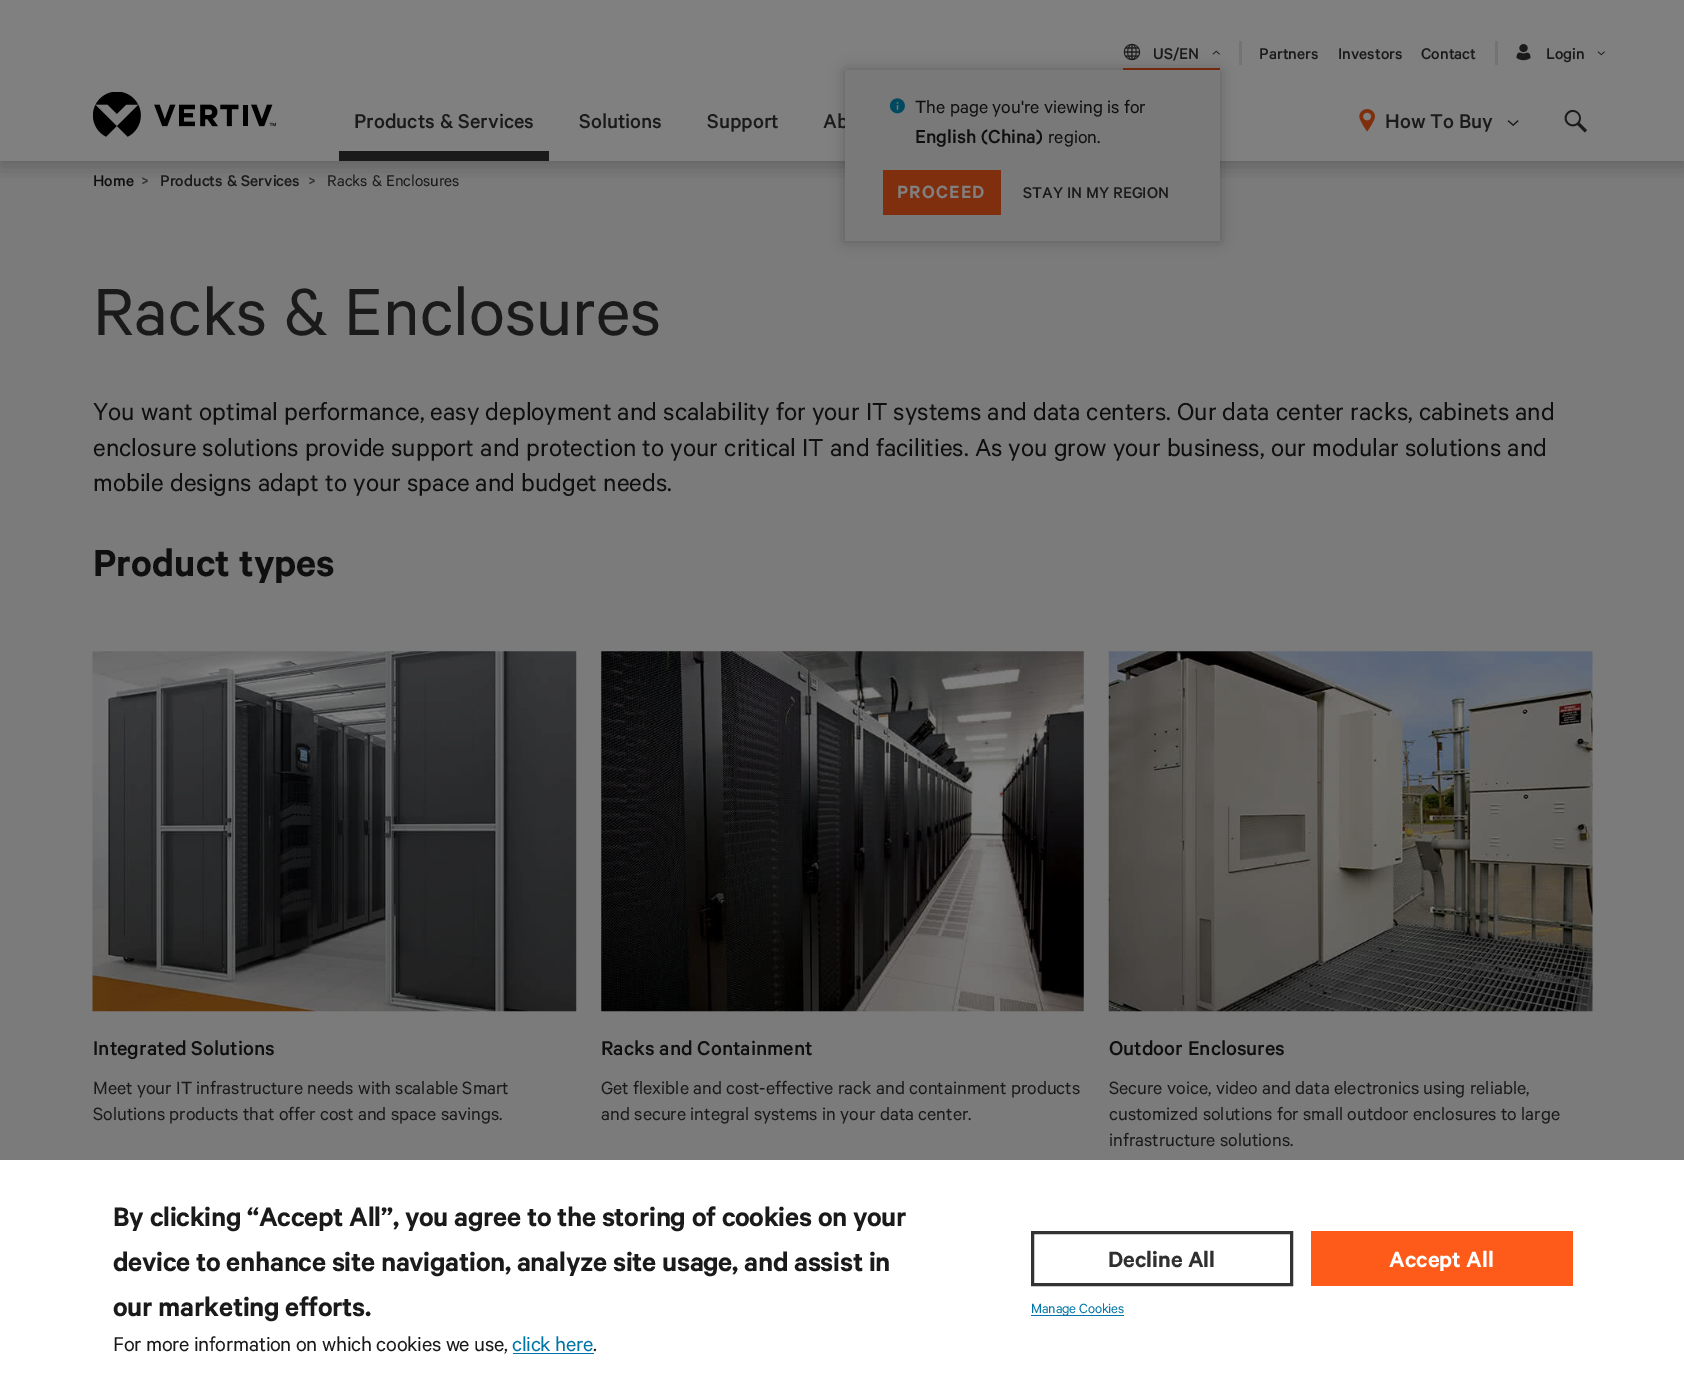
%!PS-Adobe-3.0
%%BoundingBox: 0 0 1684 1389
%%LanguageLevel: 3
%%Pages: 1
%%EndComments
%%BeginProlog
/setink { 3 { 255 div 3 1 roll } repeat setrgbcolor } def
/usefont { [ exch dup neg 0 0 3 -1 roll 0 0 ] selectfont } def
/drawtext { setink usefont moveto show } def
/fillbox { setink rectfill } def
/setalpha { dup .setfillconstantalpha .setstrokeconstantalpha } def
/rrect { 5 dict begin { /r /h /w /y /x } { exch def } forall
  x r add y moveto x w add y 2 copy h add r arct x w add y h add x 1 index r arct
  x y h add x y r arct x y 2 copy exch w add exch r arct closepath end } def
/softshadow { 12 dict begin { /a /b /q /h /w /y /x } { exch def } forall gsave /was 0 def
  9 -2 -9 { dup b mul 4 div /e exch def 1 sub .425 mul 2.718 exch exp 1 add a .99 .min exch div /now exch def
    1 1 now sub 1 was sub div sub setalpha /was now def
    w h .min e 2 mul add 0 gt { x e sub y e sub w e 2 mul add h e 2 mul add
      q e add b .6 mul add w h .min 2 div e add .min 0 .max rrect fill } if } for grestore end } def
/drawimage { 5 dict begin { /h /w /y /x /name } { exch def } forall
  gsave x y translate w h scale
  w h 8 [w 0 0 h 0 0] name (r) file false 3 colorimage grestore end } def
%%EndProlog
%%BeginSetup
<< /PageSize [1684 1389] /PageUsesTransparency true >> setpagedevice
%%EndSetup
%%Page: 1 1
0 .pushpdf14devicefilter
0 1389 translate 1 -1 scale
4 setmiterlimit
0 0 1684 1389 128 128 128 fillbox
0 161 1684 999 123 123 123 fillbox
gsave
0 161 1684 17 rectclip
0 0 0 setink
0 5 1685 161 0 9.5 0.2 softshadow
grestore
1123 68 97 2 127 46 14 fillbox
(assets/img1.rgb) 1123 43 18 18 drawimage
(US/EN) 1153 59 /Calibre-Medium 17.5 26 26 26 drawtext
(assets/img2.rgb) 1212 50 8 5 drawimage
1239 41 3 24 115 115 115 fillbox
0 0 0 setink
845 70 375 171 0 7.5 0.25 softshadow
(Ab) 823 128 /Calibre-Medium 22.5 26 26 26 drawtext
845 70 375 171 121 121 121 fillbox
(assets/img3.rgb) 889 98 16 16 drawimage
(The page you're viewing is for) 915 113 /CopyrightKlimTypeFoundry-Regular 20 15 15 15 drawtext
(English \(China\)) 915 143 /Calibre-Medium 21.25 15 15 15 drawtext
(region.) 1048 143 /CopyrightKlimTypeFoundry-Regular 20 15 15 15 drawtext
883 170 118 45 127 46 14 fillbox
/Calibre-SemiBold 20 usefont
128 128 128 setink
897 198 moveto 1.25 0 (PROCEED) ashow
(STAY IN MY REGION) 1023 198 /Calibre-Medium 17.5 26 26 26 drawtext
(Partners) 1259 59 /Calibre-Medium 17.5 26 26 26 drawtext
(Investors) 1338 59 /Calibre-Medium 17.5 26 26 26 drawtext
(Contact) 1421 59 /Calibre-Medium 17.5 26 26 26 drawtext
1495 41 3 24 115 115 115 fillbox
(assets/img4.rgb) 1516 44 15 17 drawimage
(Login) 1546 59 /Calibre-Medium 17.5 26 26 26 drawtext
(assets/img5.rgb) 1597 51 8 5 drawimage
(assets/img6.rgb) 93 92 183 45 drawimage
(Products & Services) 354 128 /Calibre-Medium 22.5 26 26 26 drawtext
339 151 210 10 26 26 26 fillbox
(Solutions) 579 128 /Calibre-Medium 22.5 26 26 26 drawtext
(Support) 707 128 /Calibre-Medium 22.5 26 26 26 drawtext
(assets/img7.rgb) 1359 109 16 23 drawimage
(How To Buy) 1385 128 /Calibre-Medium 22.5 26 26 26 drawtext
(assets/img8.rgb) 1507 120 12 6 drawimage
(assets/img9.rgb) 1564 109 23 24 drawimage
(Home) 93 186 /Calibre-Medium 17.5 15 15 15 drawtext
(>) 141 186 /Calibre-Medium 17.5 48 48 48 drawtext
(Products & Services) 160 186 /Calibre-Medium 17.5 26 26 26 drawtext
(>) 308 186 /Calibre-Medium 17.5 48 48 48 drawtext
(Racks & Enclosures) 327 186 /CopyrightKlimTypeFoundry-Regular 17.5 26 26 26 drawtext
(Racks & Enclosures) 93 335 /CopyrightKlimTypeFoundry-Regular 75 26 26 26 drawtext
(You want optimal performance, easy deployment and scalability for your IT systems and data centers. Our data center racks, cabinets and) 93 420 /CopyrightKlimTypeFoundry-Regular 27.5 15 15 15 drawtext
(enclosure solutions provide support and protection to your critical IT and facilities. As you grow your business, our modular solutions and) 93 456 /CopyrightKlimTypeFoundry-Regular 27.5 15 15 15 drawtext
(mobile designs adapt to your space and budget needs.) 93 491 /CopyrightKlimTypeFoundry-Regular 27.5 15 15 15 drawtext
(Product types) 93 576 /Calibre-SemiBold 42.5 15 15 15 drawtext
(assets/img10.rgb) 92 651 485 361 drawimage
(Integrated Solutions) 93 1055 /Calibre-Medium 22.5 15 15 15 drawtext
(Meet your IT infrastructure needs with scalable Smart) 93 1094 /CopyrightKlimTypeFoundry-Regular 20 26 26 26 drawtext
(Solutions products that offer cost and space savings.) 93 1120 /CopyrightKlimTypeFoundry-Regular 20 26 26 26 drawtext
(assets/img11.rgb) 601 651 483 361 drawimage
(Racks and Containment) 601 1055 /Calibre-Medium 22.5 15 15 15 drawtext
(Get flexible and cost-effective rack and containment products) 601 1094 /CopyrightKlimTypeFoundry-Regular 20 26 26 26 drawtext
(and secure integral systems in your data center.) 601 1120 /CopyrightKlimTypeFoundry-Regular 20 26 26 26 drawtext
(assets/img12.rgb) 1108 651 485 361 drawimage
(Outdoor Enclosures) 1109 1055 /Calibre-Medium 22.5 15 15 15 drawtext
(Secure voice, video and data electronics using reliable,) 1109 1094 /CopyrightKlimTypeFoundry-Regular 20 26 26 26 drawtext
(customized solutions for small outdoor enclosures to large) 1109 1120 /CopyrightKlimTypeFoundry-Regular 20 26 26 26 drawtext
(infrastructure solutions.) 1109 1146 /CopyrightKlimTypeFoundry-Regular 20 26 26 26 drawtext
0 1160 1684 229 255 255 255 fillbox
/Calibre-SemiBold 30 usefont
26 26 26 setink
113 1226 moveto -0.33 0 (By clicking “Accept All”, you agree to the storing of cookies on your) ashow
113 1271 moveto -0.33 0 (device to enhance site navigation, analyze site usage, and assist in) ashow
113 1316 moveto -0.33 0 (our marketing efforts.) ashow
/CopyrightKlimTypeFoundry-Regular 22.5 usefont
113 1351 moveto -0.25 0 (For more information on which cookies we use,) ashow
0 118 168 setink
512 1351 moveto -0.25 0 (click here) ashow
513 1353 81 1 0 118 168 fillbox
26 26 26 setink
593 1351 moveto -0.25 0 (.) ashow
51 51 51 setink
3 setlinewidth
1032.5 1232.5 259 52 rectstroke
(Decline All) 1108 1267 /Calibre-SemiBold 25 48 48 48 drawtext
1311 1231 262 55 254 91 27 fillbox
(Accept All) 1389 1267 /Calibre-SemiBold 25 255 255 255 drawtext
1031 1315 93 1 0 118 168 fillbox
/CopyrightKlimTypeFoundry-Regular 15 usefont
1031 1313 moveto -0.2 0 (Manage Cookies) ashow
.poppdf14devicefilter showpage
%%EOF
